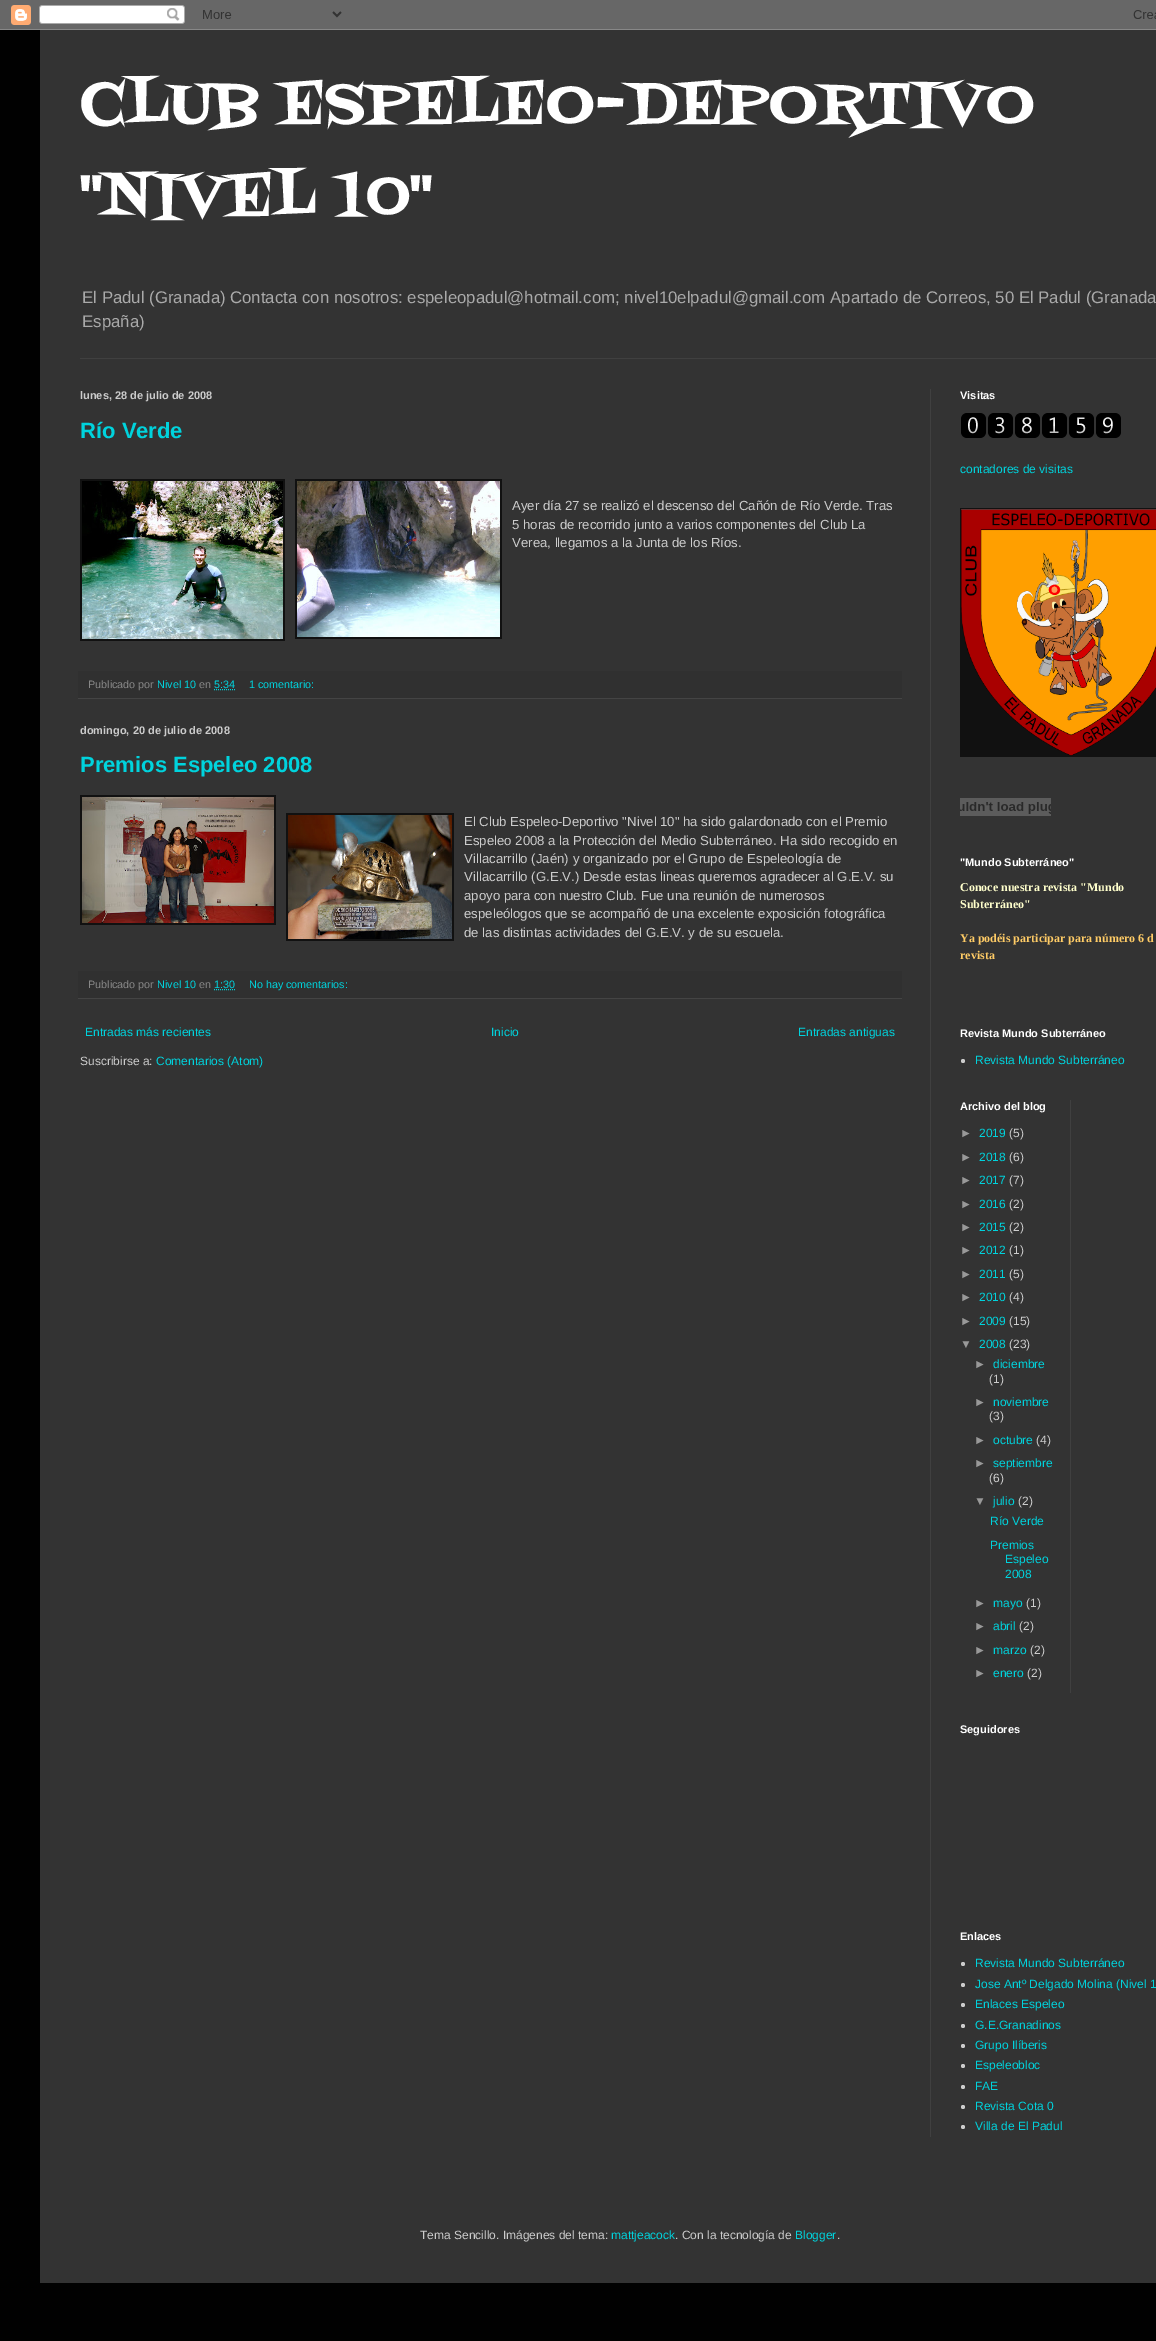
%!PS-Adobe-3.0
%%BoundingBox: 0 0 1156 2341
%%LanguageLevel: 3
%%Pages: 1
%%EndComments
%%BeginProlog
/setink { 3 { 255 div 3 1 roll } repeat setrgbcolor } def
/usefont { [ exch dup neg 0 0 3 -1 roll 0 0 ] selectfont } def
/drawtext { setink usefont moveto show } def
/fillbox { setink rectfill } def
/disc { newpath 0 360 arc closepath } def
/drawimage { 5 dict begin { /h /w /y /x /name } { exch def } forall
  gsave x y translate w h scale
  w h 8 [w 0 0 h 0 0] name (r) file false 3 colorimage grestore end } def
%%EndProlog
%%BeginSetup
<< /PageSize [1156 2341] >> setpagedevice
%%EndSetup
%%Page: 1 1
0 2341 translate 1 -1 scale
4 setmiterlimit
0 0 1156 2341 1 1 1 fillbox
(assets/img1.rgb) 0 0 1156 30 drawimage
40 30 1116 2253 51 51 51 fillbox
(CLUB ESPELEO-DEPORTIVO) 80 123 /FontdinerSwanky-Regular 60 255 255 255 drawtext
("NIVEL 10") 80 215 /FontdinerSwanky-Regular 60 255 255 255 drawtext
(El Padul \(Granada\)) 82 303 /LiberationSans-Regular 16.8 170 170 170 drawtext
(Contacta con nosotros: espeleopadul@hotmail.com; nivel10elpadul@gmail.com) 230 303 /LiberationSans-Regular 16.8 170 170 170 drawtext
(Apartado de Correos, 50 El Padul \(Granada) 830 303 /LiberationSans-Regular 16.8 170 170 170 drawtext
(España\)) 82 327 /LiberationSans-Regular 16.8 170 170 170 drawtext
80 358 1076 1 64 64 64 fillbox
930 389 1 1748 64 64 64 fillbox
(lunes, 28 de julio de 2008) 80 399 /LiberationSans-Bold 11 204 204 204 drawtext
(Río Verde) 80 438 /LiberationSans-Bold 22 0 211 221 drawtext
80 479 205 162 17 17 17 fillbox
(assets/img2.rgb) 82 481 201 158 drawimage
295 479 207 160 17 17 17 fillbox
(assets/img3.rgb) 297 481 203 156 drawimage
(Ayer día 27 se realizó el descenso del Cañón de Río Verde. Tras) 512 510 /LiberationSans-Regular 13.2 204 204 204 drawtext
(5 horas de recorrido junto a varios componentes del Club La) 512 529 /LiberationSans-Regular 13.2 204 204 204 drawtext
(Verea, llegamos a la Junta de los Ríos.) 512 547 /LiberationSans-Regular 13.2 204 204 204 drawtext
78 671 824 27 48 48 48 fillbox
78 698 824 1 68 68 68 fillbox
(Publicado por) 88 688 /LiberationSans-Regular 10.75 136 136 136 drawtext
(Nivel 10) 157 688 /LiberationSans-Regular 10.75 0 211 221 drawtext
(en) 199 688 /LiberationSans-Regular 10.75 136 136 136 drawtext
(5:34) 214 688 /LiberationSans-Regular 10.75 0 211 221 drawtext
[1 1] 0 setdash
214 689.5 moveto 235 689.5 lineto stroke
(1 comentario:) 249 688 /LiberationSans-Regular 10.75 0 211 221 drawtext
(domingo, 20 de julio de 2008) 80 734 /LiberationSans-Bold 11 204 204 204 drawtext
(Premios Espeleo 2008) 80 772 /LiberationSans-Bold 22 0 211 221 drawtext
80 795 196 130 17 17 17 fillbox
(assets/img4.rgb) 82 797 192 126 drawimage
286 813 168 128 17 17 17 fillbox
(assets/img5.rgb) 288 815 164 124 drawimage
(El Club Espeleo-Deportivo "Nivel 10" ha sido galardonado con el Premio) 464 826 /LiberationSans-Regular 13.2 204 204 204 drawtext
(Espeleo 2008 a la Protección del Medio Subterráneo. Ha sido recogido en) 464 845 /LiberationSans-Regular 13.2 204 204 204 drawtext
(Villacarrillo \(Jaén\) y organizado por el Grupo de Espeleología de) 464 863 /LiberationSans-Regular 13.2 204 204 204 drawtext
(Villacarrillo \(G.E.V.\) Desde estas lineas queremos agradecer al G.E.V. su) 464 881 /LiberationSans-Regular 13.2 204 204 204 drawtext
(apoyo para con nuestro Club. Fue una reunión de numerosos) 464 900 /LiberationSans-Regular 13.2 204 204 204 drawtext
(espeleólogos que se acompañó de una excelente exposición fotográfica) 464 918 /LiberationSans-Regular 13.2 204 204 204 drawtext
(de las distintas actividades del G.E.V. y de su escuela.) 464 937 /LiberationSans-Regular 13.2 204 204 204 drawtext
78 971 824 27 48 48 48 fillbox
78 998 824 1 68 68 68 fillbox
(Publicado por) 88 988 /LiberationSans-Regular 10.75 136 136 136 drawtext
(Nivel 10) 157 988 /LiberationSans-Regular 10.75 0 211 221 drawtext
(en) 199 988 /LiberationSans-Regular 10.75 136 136 136 drawtext
(1:30) 214 988 /LiberationSans-Regular 10.75 0 211 221 drawtext
214 989.5 moveto 235 989.5 lineto stroke
(No hay comentarios:) 249 988 /LiberationSans-Regular 10.75 0 211 221 drawtext
(Entradas más recientes) 85 1036 /LiberationSans-Regular 12 0 211 221 drawtext
(Inicio) 491 1036 /LiberationSans-Regular 12 0 211 221 drawtext
(Entradas antiguas) 798 1036 /LiberationSans-Regular 12 0 211 221 drawtext
(Suscribirse a:) 80 1065 /LiberationSans-Regular 12 204 204 204 drawtext
(Comentarios \(Atom\)) 156 1065 /LiberationSans-Regular 12 0 211 221 drawtext
(Visitas) 960 399 /LiberationSans-Bold 11 255 255 255 drawtext
(assets/img6.rgb) 961 413 160 25 drawimage
(contadores de visitas) 960 473 /LiberationSans-Regular 12 0 211 221 drawtext
960 508 196 249 17 17 17 fillbox
(assets/img7.rgb) 961 509 195 247 drawimage
(assets/img8.rgb) 960 798 91 18 drawimage
("Mundo Subterráneo") 960 866 /LiberationSans-Bold 11 255 255 255 drawtext
(Conoce nuestra revista "Mundo) 960 891 /LiberationSerif-Bold 12 255 255 204 drawtext
(Subterráneo") 960 908 /LiberationSerif-Bold 12 255 255 204 drawtext
(Ya podéis participar para número 6 d) 960 942 /LiberationSerif-Bold 12 255 204 102 drawtext
(revista) 960 959 /LiberationSerif-Bold 12 255 204 102 drawtext
(Revista Mundo Subterráneo) 960 1037 /LiberationSans-Bold 11 255 255 255 drawtext
204 204 204 setink
963 1061 2 disc fill
(Revista Mundo Subterráneo) 975 1064 /LiberationSans-Regular 12 0 211 221 drawtext
(Archivo del blog) 960 1110 /LiberationSans-Bold 11 255 255 255 drawtext
(►) 960 1137 /LiberationSans-Regular 12 153 153 153 drawtext
(2019) 979 1137 /LiberationSans-Regular 12 0 211 221 drawtext
(\(5\)) 1009 1137 /LiberationSans-Regular 12 204 204 204 drawtext
(►) 960 1161 /LiberationSans-Regular 12 153 153 153 drawtext
(2018) 979 1161 /LiberationSans-Regular 12 0 211 221 drawtext
(\(6\)) 1009 1161 /LiberationSans-Regular 12 204 204 204 drawtext
(►) 960 1184 /LiberationSans-Regular 12 153 153 153 drawtext
(2017) 979 1184 /LiberationSans-Regular 12 0 211 221 drawtext
(\(7\)) 1009 1184 /LiberationSans-Regular 12 204 204 204 drawtext
(►) 960 1208 /LiberationSans-Regular 12 153 153 153 drawtext
(2016) 979 1208 /LiberationSans-Regular 12 0 211 221 drawtext
(\(2\)) 1009 1208 /LiberationSans-Regular 12 204 204 204 drawtext
(►) 960 1231 /LiberationSans-Regular 12 153 153 153 drawtext
(2015) 979 1231 /LiberationSans-Regular 12 0 211 221 drawtext
(\(2\)) 1009 1231 /LiberationSans-Regular 12 204 204 204 drawtext
(►) 960 1254 /LiberationSans-Regular 12 153 153 153 drawtext
(2012) 979 1254 /LiberationSans-Regular 12 0 211 221 drawtext
(\(1\)) 1009 1254 /LiberationSans-Regular 12 204 204 204 drawtext
(►) 960 1278 /LiberationSans-Regular 12 153 153 153 drawtext
(2011) 979 1278 /LiberationSans-Regular 12 0 211 221 drawtext
(\(5\)) 1009 1278 /LiberationSans-Regular 12 204 204 204 drawtext
(►) 960 1301 /LiberationSans-Regular 12 153 153 153 drawtext
(2010) 979 1301 /LiberationSans-Regular 12 0 211 221 drawtext
(\(4\)) 1009 1301 /LiberationSans-Regular 12 204 204 204 drawtext
(►) 960 1325 /LiberationSans-Regular 12 153 153 153 drawtext
(2009) 979 1325 /LiberationSans-Regular 12 0 211 221 drawtext
(\(15\)) 1009 1325 /LiberationSans-Regular 12 204 204 204 drawtext
(▼) 960 1348 /LiberationSans-Regular 12 153 153 153 drawtext
(2008) 979 1348 /LiberationSans-Regular 12 0 211 221 drawtext
(\(23\)) 1009 1348 /LiberationSans-Regular 12 204 204 204 drawtext
(►) 974 1368 /LiberationSans-Regular 12 153 153 153 drawtext
(diciembre) 993 1368 /LiberationSans-Regular 12 0 211 221 drawtext
(\(1\)) 989 1383 /LiberationSans-Regular 12 204 204 204 drawtext
(►) 974 1406 /LiberationSans-Regular 12 153 153 153 drawtext
(noviembre) 993 1406 /LiberationSans-Regular 12 0 211 221 drawtext
(\(3\)) 989 1420 /LiberationSans-Regular 12 204 204 204 drawtext
(►) 974 1444 /LiberationSans-Regular 12 153 153 153 drawtext
(octubre) 993 1444 /LiberationSans-Regular 12 0 211 221 drawtext
(\(4\)) 1036 1444 /LiberationSans-Regular 12 204 204 204 drawtext
(►) 974 1467 /LiberationSans-Regular 12 153 153 153 drawtext
(septiembre) 993 1467 /LiberationSans-Regular 12 0 211 221 drawtext
(\(6\)) 989 1482 /LiberationSans-Regular 12 204 204 204 drawtext
(▼) 974 1505 /LiberationSans-Regular 12 153 153 153 drawtext
(julio) 993 1505 /LiberationSans-Regular 12 0 211 221 drawtext
(\(2\)) 1018 1505 /LiberationSans-Regular 12 204 204 204 drawtext
(Río Verde) 990 1525 /LiberationSans-Regular 12 0 211 221 drawtext
(Premios) 990 1549 /LiberationSans-Regular 12 0 211 221 drawtext
(Espeleo) 1005 1563 /LiberationSans-Regular 12 0 211 221 drawtext
(2008) 1005 1578 /LiberationSans-Regular 12 0 211 221 drawtext
(►) 974 1607 /LiberationSans-Regular 12 153 153 153 drawtext
(mayo) 993 1607 /LiberationSans-Regular 12 0 211 221 drawtext
(\(1\)) 1026 1607 /LiberationSans-Regular 12 204 204 204 drawtext
(►) 974 1630 /LiberationSans-Regular 12 153 153 153 drawtext
(abril) 993 1630 /LiberationSans-Regular 12 0 211 221 drawtext
(\(2\)) 1019 1630 /LiberationSans-Regular 12 204 204 204 drawtext
(►) 974 1654 /LiberationSans-Regular 12 153 153 153 drawtext
(marzo) 993 1654 /LiberationSans-Regular 12 0 211 221 drawtext
(\(2\)) 1030 1654 /LiberationSans-Regular 12 204 204 204 drawtext
(►) 974 1677 /LiberationSans-Regular 12 153 153 153 drawtext
(enero) 993 1677 /LiberationSans-Regular 12 0 211 221 drawtext
(\(2\)) 1027 1677 /LiberationSans-Regular 12 204 204 204 drawtext
1070 1100 1 593 64 64 64 fillbox
(Seguidores) 960 1733 /LiberationSans-Bold 11 255 255 255 drawtext
(Enlaces) 960 1940 /LiberationSans-Bold 11 255 255 255 drawtext
204 204 204 setink
963 1964 2 disc fill
(Revista Mundo Subterráneo) 975 1967 /LiberationSans-Regular 12 0 211 221 drawtext
204 204 204 setink
963 1985 2 disc fill
(Jose Antº Delgado Molina \(Nivel 1) 975 1988 /LiberationSans-Regular 12 0 211 221 drawtext
204 204 204 setink
963 2005 2 disc fill
(Enlaces Espeleo) 975 2008 /LiberationSans-Regular 12 0 211 221 drawtext
204 204 204 setink
963 2026 2 disc fill
(G.E.Granadinos) 975 2029 /LiberationSans-Regular 12 0 211 221 drawtext
204 204 204 setink
963 2046 2 disc fill
(Grupo Ilíberis) 975 2049 /LiberationSans-Regular 12 0 211 221 drawtext
204 204 204 setink
963 2066 2 disc fill
(Espeleobloc) 975 2069 /LiberationSans-Regular 12 0 211 221 drawtext
204 204 204 setink
963 2087 2 disc fill
(FAE) 975 2090 /LiberationSans-Regular 12 0 211 221 drawtext
204 204 204 setink
963 2107 2 disc fill
(Revista Cota 0) 975 2110 /LiberationSans-Regular 12 0 211 221 drawtext
204 204 204 setink
963 2127 2 disc fill
(Villa de El Padul) 975 2130 /LiberationSans-Regular 12 0 211 221 drawtext
(Tema Sencillo. Imágenes del tema:) 420 2239 /LiberationSans-Regular 12 204 204 204 drawtext
(mattjeacock) 611 2239 /LiberationSans-Regular 12 0 211 221 drawtext
(. Con la tecnología de) 675 2239 /LiberationSans-Regular 12 204 204 204 drawtext
(Blogger) 795 2239 /LiberationSans-Regular 12 0 211 221 drawtext
(.) 837 2239 /LiberationSans-Regular 12 204 204 204 drawtext
showpage
%%EOF
